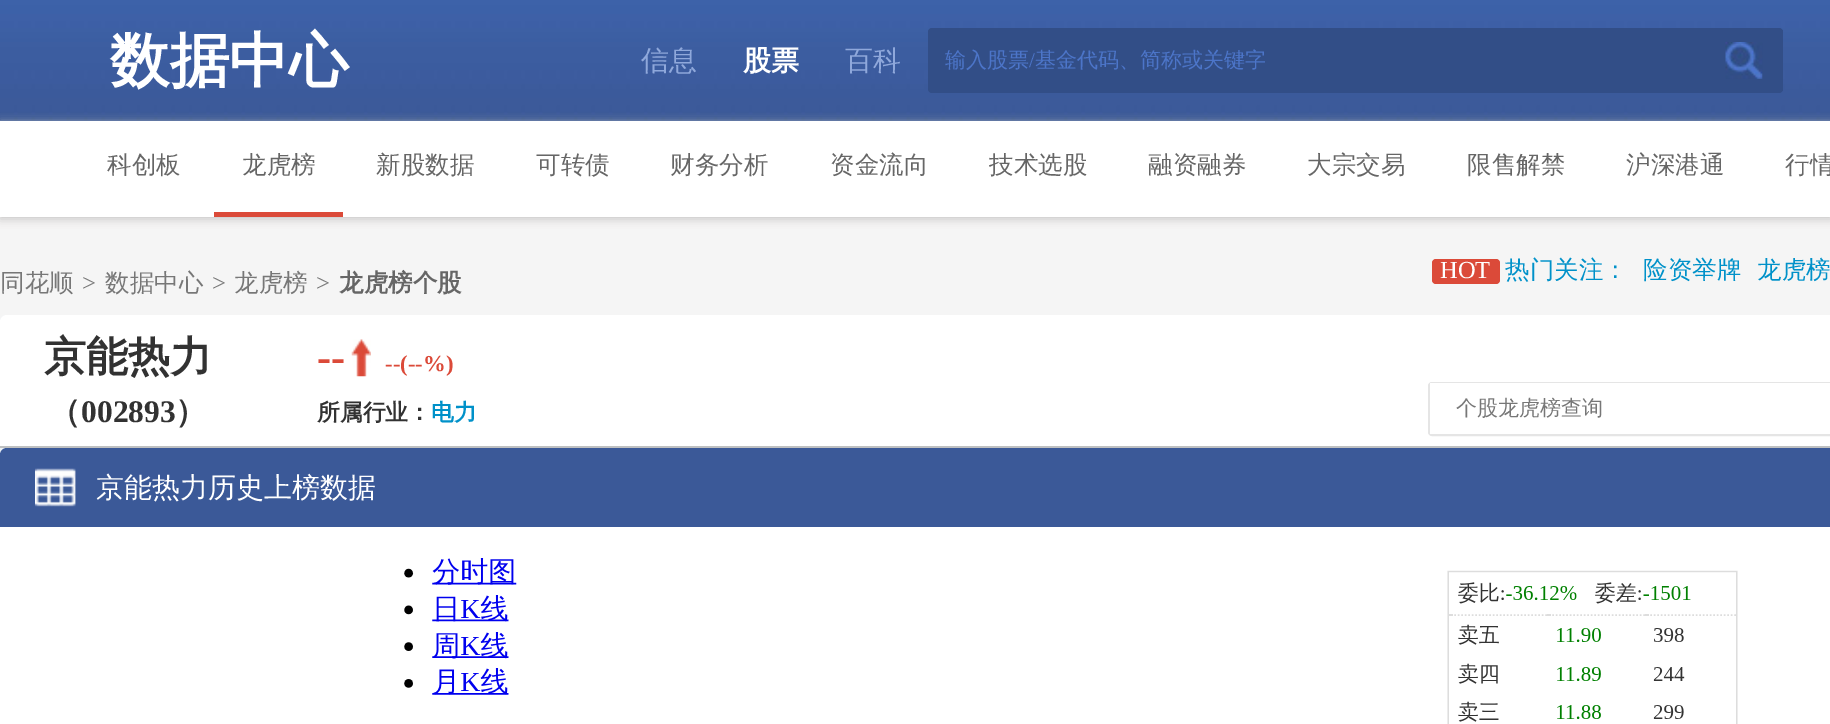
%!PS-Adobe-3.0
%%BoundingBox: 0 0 1830 724
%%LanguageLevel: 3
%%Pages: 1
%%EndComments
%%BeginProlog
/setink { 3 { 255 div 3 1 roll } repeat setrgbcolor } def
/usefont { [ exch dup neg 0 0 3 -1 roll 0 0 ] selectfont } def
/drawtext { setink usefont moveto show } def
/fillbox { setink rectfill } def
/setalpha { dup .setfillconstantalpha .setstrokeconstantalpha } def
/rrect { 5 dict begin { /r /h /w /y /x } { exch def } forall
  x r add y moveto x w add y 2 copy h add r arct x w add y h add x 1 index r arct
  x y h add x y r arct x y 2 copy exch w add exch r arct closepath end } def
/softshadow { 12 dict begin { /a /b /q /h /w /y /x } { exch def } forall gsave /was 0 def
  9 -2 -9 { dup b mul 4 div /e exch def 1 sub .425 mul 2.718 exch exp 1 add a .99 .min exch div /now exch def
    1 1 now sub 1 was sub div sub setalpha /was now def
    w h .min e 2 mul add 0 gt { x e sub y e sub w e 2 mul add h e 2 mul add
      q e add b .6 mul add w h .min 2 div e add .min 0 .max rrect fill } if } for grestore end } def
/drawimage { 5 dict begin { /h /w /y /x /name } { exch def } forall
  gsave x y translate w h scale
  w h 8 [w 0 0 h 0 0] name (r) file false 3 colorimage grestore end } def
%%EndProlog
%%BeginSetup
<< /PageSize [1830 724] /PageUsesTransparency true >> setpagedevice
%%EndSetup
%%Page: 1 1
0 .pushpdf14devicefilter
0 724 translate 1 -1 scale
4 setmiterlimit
0 0 1830 724 245 245 245 fillbox
206 205 205 setink
0 124 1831 63 9 3.5 1 softshadow
(assets/img1.rgb) 0 0 1830 121 drawimage
(数据中心) 110 81 /WenQuanYiZenHei-Bold 59.5 255 255 255 drawtext
(信息) 641 70 /WenQuanYiZenHei-Medium 28 143 168 219 drawtext
(股票) 743 70 /WenQuanYiZenHei-Bold 28 255 255 255 drawtext
(百科) 845 70 /WenQuanYiZenHei-Medium 28 143 168 219 drawtext
50 78 135 setink
928 28 855 65 4 rrect fill
(输入股票) 945 67 /WenQuanYiZenHei-Medium 21 76 117 201 drawtext
(/) 1029 67 /LiberationSerif-Regular 21 76 117 201 drawtext
(基金代码、简称或关键字) 1035 67 /WenQuanYiZenHei-Medium 21 76 117 201 drawtext
1782 30 1 61 50 78 135 fillbox
(assets/img2.rgb) 1725 42 38 37 drawimage
198 197 197 setink
0 123 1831 96 0 4.5 1 softshadow
0 121 1830 96 255 255 255 fillbox
(科创板) 107 173 /WenQuanYiZenHei-Medium 24.5 102 102 102 drawtext
214 212 129 5 219 74 57 fillbox
(龙虎榜) 242 173 /WenQuanYiZenHei-Medium 24.5 102 102 102 drawtext
(新股数据) 376 173 /WenQuanYiZenHei-Medium 24.5 102 102 102 drawtext
(可转债) 536 173 /WenQuanYiZenHei-Medium 24.5 102 102 102 drawtext
(财务分析) 670 173 /WenQuanYiZenHei-Medium 24.5 102 102 102 drawtext
(资金流向) 830 173 /WenQuanYiZenHei-Medium 24.5 102 102 102 drawtext
(技术选股) 989 173 /WenQuanYiZenHei-Medium 24.5 102 102 102 drawtext
(融资融券) 1148 173 /WenQuanYiZenHei-Medium 24.5 102 102 102 drawtext
(大宗交易) 1307 173 /WenQuanYiZenHei-Medium 24.5 102 102 102 drawtext
(限售解禁) 1467 173 /WenQuanYiZenHei-Medium 24.5 102 102 102 drawtext
(沪深港通) 1626 173 /WenQuanYiZenHei-Medium 24.5 102 102 102 drawtext
(行情) 1785 173 /WenQuanYiZenHei-Medium 24.5 102 102 102 drawtext
(同花顺) 0 291 /WenQuanYiZenHei-Medium 24.5 119 119 119 drawtext
(>) 82 291 /LiberationSerif-Regular 24.5 119 119 119 drawtext
(数据中心) 105 291 /WenQuanYiZenHei-Medium 24.5 119 119 119 drawtext
(>) 212 291 /LiberationSerif-Regular 24.5 119 119 119 drawtext
(龙虎榜) 234 291 /WenQuanYiZenHei-Medium 24.5 119 119 119 drawtext
(>) 316 291 /LiberationSerif-Regular 24.5 119 119 119 drawtext
(龙虎榜个股) 339 291 /WenQuanYiZenHei-Bold 24.5 102 102 102 drawtext
219 74 57 setink
1432 259 68 25 4 rrect fill
(HOT) 1440 278 /LiberationSerif-Regular 24.5 255 255 255 drawtext
(热门关注：) 1505 278 /WenQuanYiZenHei-Medium 24.5 0 145 201 drawtext
(险资举牌) 1643 278 /WenQuanYiZenHei-Medium 24.5 0 145 201 drawtext
(龙虎榜) 1757 278 /WenQuanYiZenHei-Medium 24.5 0 145 201 drawtext
236 242 246 setink
0 315 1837 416 7 rrect fill
255 255 255 setink
7 315 moveto 1830 315 lineto 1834 315 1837 318 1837 322 curveto 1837 448 lineto 0 448 lineto 0 322 lineto 0 318 3 315 7 315 curveto closepath fill
0 446 1830 2 190 192 193 fillbox
(京能热力) 44 371 /WenQuanYiZenHei-Bold 42 50 50 50 drawtext
(（) 49 422 /WenQuanYiZenHei-Bold 31.5 50 50 50 drawtext
(002893) 81 422 /LiberationSerif-Bold 31.5 50 50 50 drawtext
(）) 175 422 /WenQuanYiZenHei-Bold 31.5 50 50 50 drawtext
(assets/img3.rgb) 351 339 20 38 drawimage
(--) 317 371 /LiberationSerif-Bold 42 219 74 57 drawtext
(--\(--%\)) 385 371 /LiberationSerif-Bold 22.75 219 74 57 drawtext
(所属行业：) 317 420 /WenQuanYiZenHei-Bold 22.75 50 50 50 drawtext
(电力) 431 420 /WenQuanYiZenHei-Bold 22.75 0 145 201 drawtext
229 229 229 setink
2 setlinewidth
1429 383 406 52 3 rrect stroke
1430 383 400 51 255 255 255 fillbox
(个股龙虎榜查询) 1456 415 /WenQuanYiZenHei-Medium 21 119 119 119 drawtext
59 89 152 setink
7 448 moveto 1830 448 lineto 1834 448 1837 451 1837 455 curveto 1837 527 lineto 0 527 lineto 0 455 lineto 0 451 3 448 7 448 curveto closepath fill
(assets/img4.rgb) 35 468 41 39 drawimage
(京能热力历史上榜数据) 96 497 /WenQuanYiZenHei-Medium 28 255 255 255 drawtext
0 527 1830 197 255 255 255 fillbox
(assets/img5.rgb) 404 558 113 137 drawimage
(assets/img6.rgb) 1447 570 291 154 drawimage
.poppdf14devicefilter showpage
%%EOF
